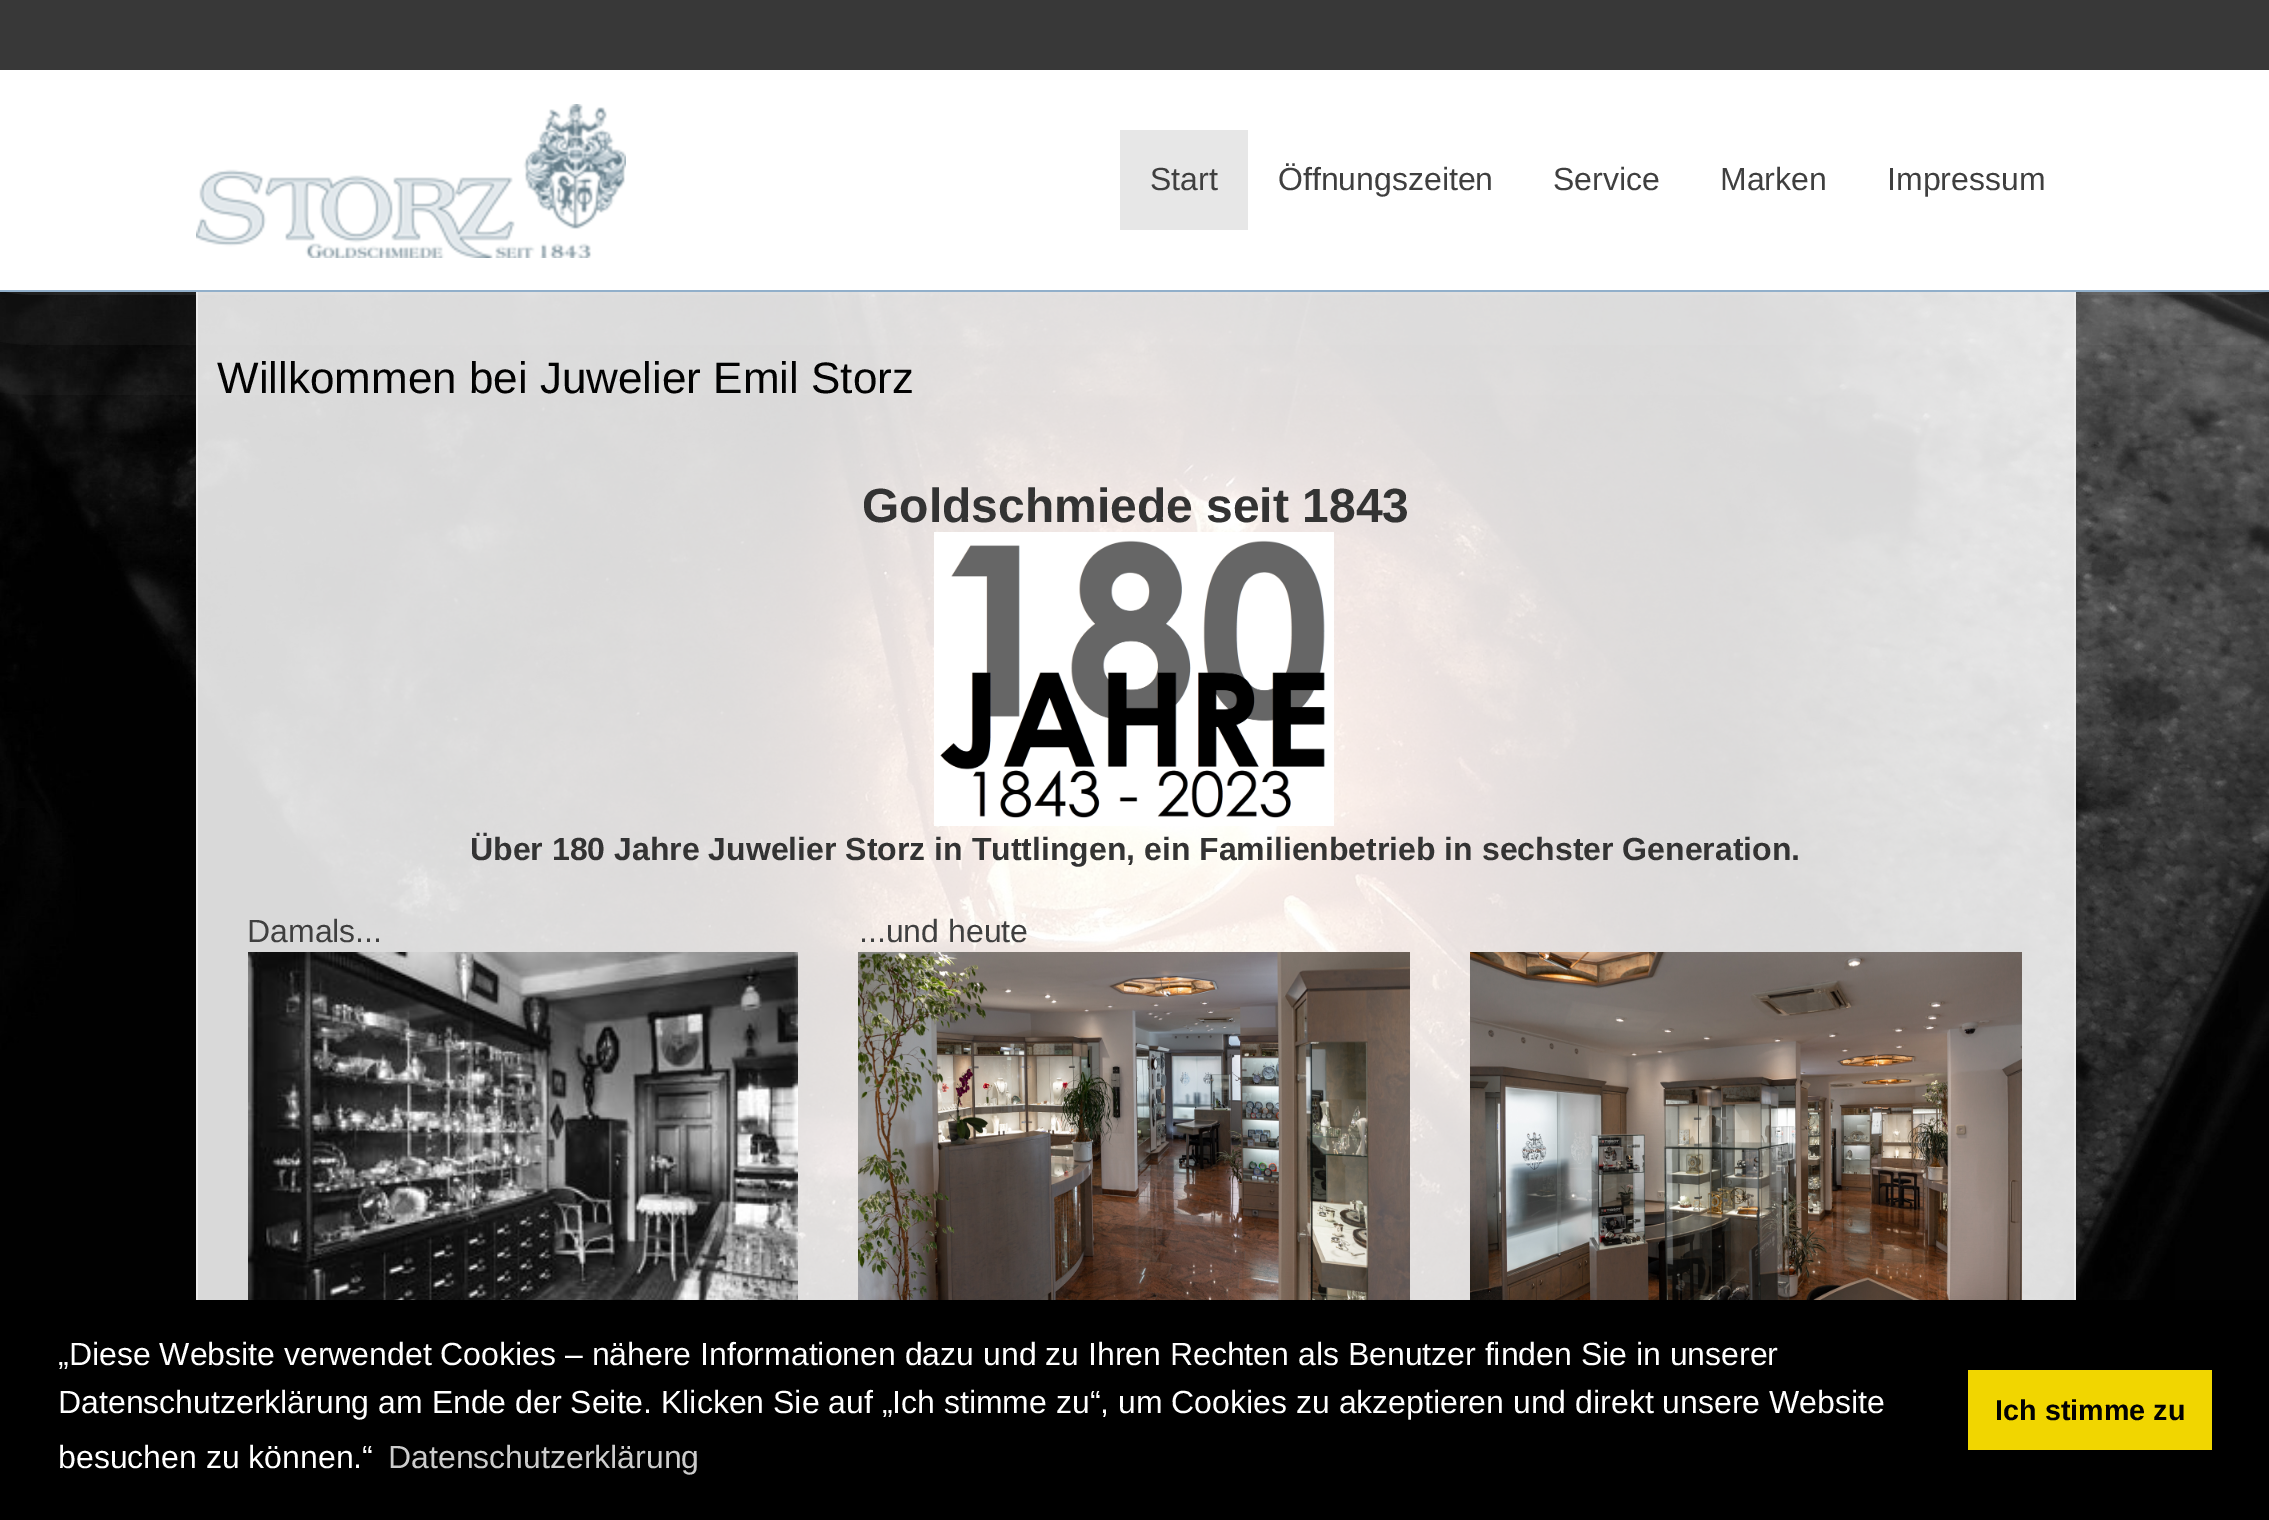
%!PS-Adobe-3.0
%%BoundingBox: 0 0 2269 1520
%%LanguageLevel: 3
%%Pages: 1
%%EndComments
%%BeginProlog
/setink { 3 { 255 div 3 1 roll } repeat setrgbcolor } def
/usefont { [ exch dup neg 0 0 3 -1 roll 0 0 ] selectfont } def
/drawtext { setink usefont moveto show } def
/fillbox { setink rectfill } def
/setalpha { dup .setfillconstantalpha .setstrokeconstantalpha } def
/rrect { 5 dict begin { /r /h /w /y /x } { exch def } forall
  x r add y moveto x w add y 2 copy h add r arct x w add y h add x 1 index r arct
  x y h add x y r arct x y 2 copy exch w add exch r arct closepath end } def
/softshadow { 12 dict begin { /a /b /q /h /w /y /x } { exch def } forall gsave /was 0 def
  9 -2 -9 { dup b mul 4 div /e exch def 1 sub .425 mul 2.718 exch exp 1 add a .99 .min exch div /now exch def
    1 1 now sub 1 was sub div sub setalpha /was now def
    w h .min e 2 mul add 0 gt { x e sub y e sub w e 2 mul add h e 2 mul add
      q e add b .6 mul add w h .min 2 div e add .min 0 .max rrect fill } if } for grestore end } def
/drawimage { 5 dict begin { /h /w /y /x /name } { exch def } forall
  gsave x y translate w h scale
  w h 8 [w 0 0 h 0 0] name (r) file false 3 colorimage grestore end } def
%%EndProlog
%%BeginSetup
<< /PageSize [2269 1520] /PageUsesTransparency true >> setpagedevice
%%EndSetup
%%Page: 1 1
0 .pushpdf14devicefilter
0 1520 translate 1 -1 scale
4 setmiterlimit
0 0 2269 1520 255 255 255 fillbox
(assets/img1.rgb) 0 292 2269 1008 drawimage
202 202 202 setink
2 100 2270 70 0 100 1 softshadow
0 0 2269 70 56 56 56 fillbox
0 70 2269 220 255 255 255 fillbox
0 290 2269 2 145 175 202 fillbox
(assets/img2.rgb) 196 104 430 154 drawimage
1120 130 128 100 231 231 231 fillbox
(Start) 1150 190 /LiberationSans-Regular 32 63 63 63 drawtext
(Öffnungszeiten) 1278 190 /LiberationSans-Regular 32 63 63 63 drawtext
(Service) 1553 190 /LiberationSans-Regular 32 63 63 63 drawtext
(Marken) 1720 190 /LiberationSans-Regular 32 63 63 63 drawtext
(Impressum) 1887 190 /LiberationSans-Regular 32 63 63 63 drawtext
0.85 setalpha
198 292 1876 1008 255 255 255 fillbox
1 setalpha
2074 292 2 1008 236 236 236 fillbox
196 292 2 1008 236 236 236 fillbox
(Willkommen bei Juwelier Emil Storz) 217 393 /LiberationSans-Regular 44 2 2 2 drawtext
(Goldschmiede seit 1843) 862 522 /LiberationSans-Bold 48 51 51 51 drawtext
(assets/img3.rgb) 934 532 400 294 drawimage
(Über 180 Jahre Juwelier Storz in Tuttlingen, ein Familienbetrieb in sechster Generation.) 470 860 /LiberationSans-Bold 32 51 51 51 drawtext
(Damals...) 247 942 /LiberationSans-Regular 32 63 63 63 drawtext
(assets/img4.rgb) 248 952 550 348 drawimage
(...und heute) 859 942 /LiberationSans-Regular 32 63 63 63 drawtext
(assets/img5.rgb) 858 952 552 348 drawimage
(assets/img6.rgb) 1470 952 552 348 drawimage
0 1300 2269 220 0 0 0 fillbox
(„Diese Website verwendet Cookies – nähere Informationen dazu und zu Ihren Rechten als Benutzer finden Sie in unserer) 58 1365 /LiberationSans-Regular 32 255 255 255 drawtext
(Datenschutzerklärung am Ende der Seite. Klicken Sie auf „Ich stimme zu“, um Cookies zu akzeptieren und direkt unsere Website) 58 1413 /LiberationSans-Regular 32 255 255 255 drawtext
(besuchen zu können.“) 58 1468 /LiberationSans-Regular 32 255 255 255 drawtext
(Datenschutzerklärung) 388 1468 /LiberationSans-Regular 32 204 204 204 drawtext
1968 1370 244 80 241 214 0 fillbox
(Ich stimme zu) 1995 1420 /LiberationSans-Bold 28.75 2 2 2 drawtext
.poppdf14devicefilter showpage
%%EOF
